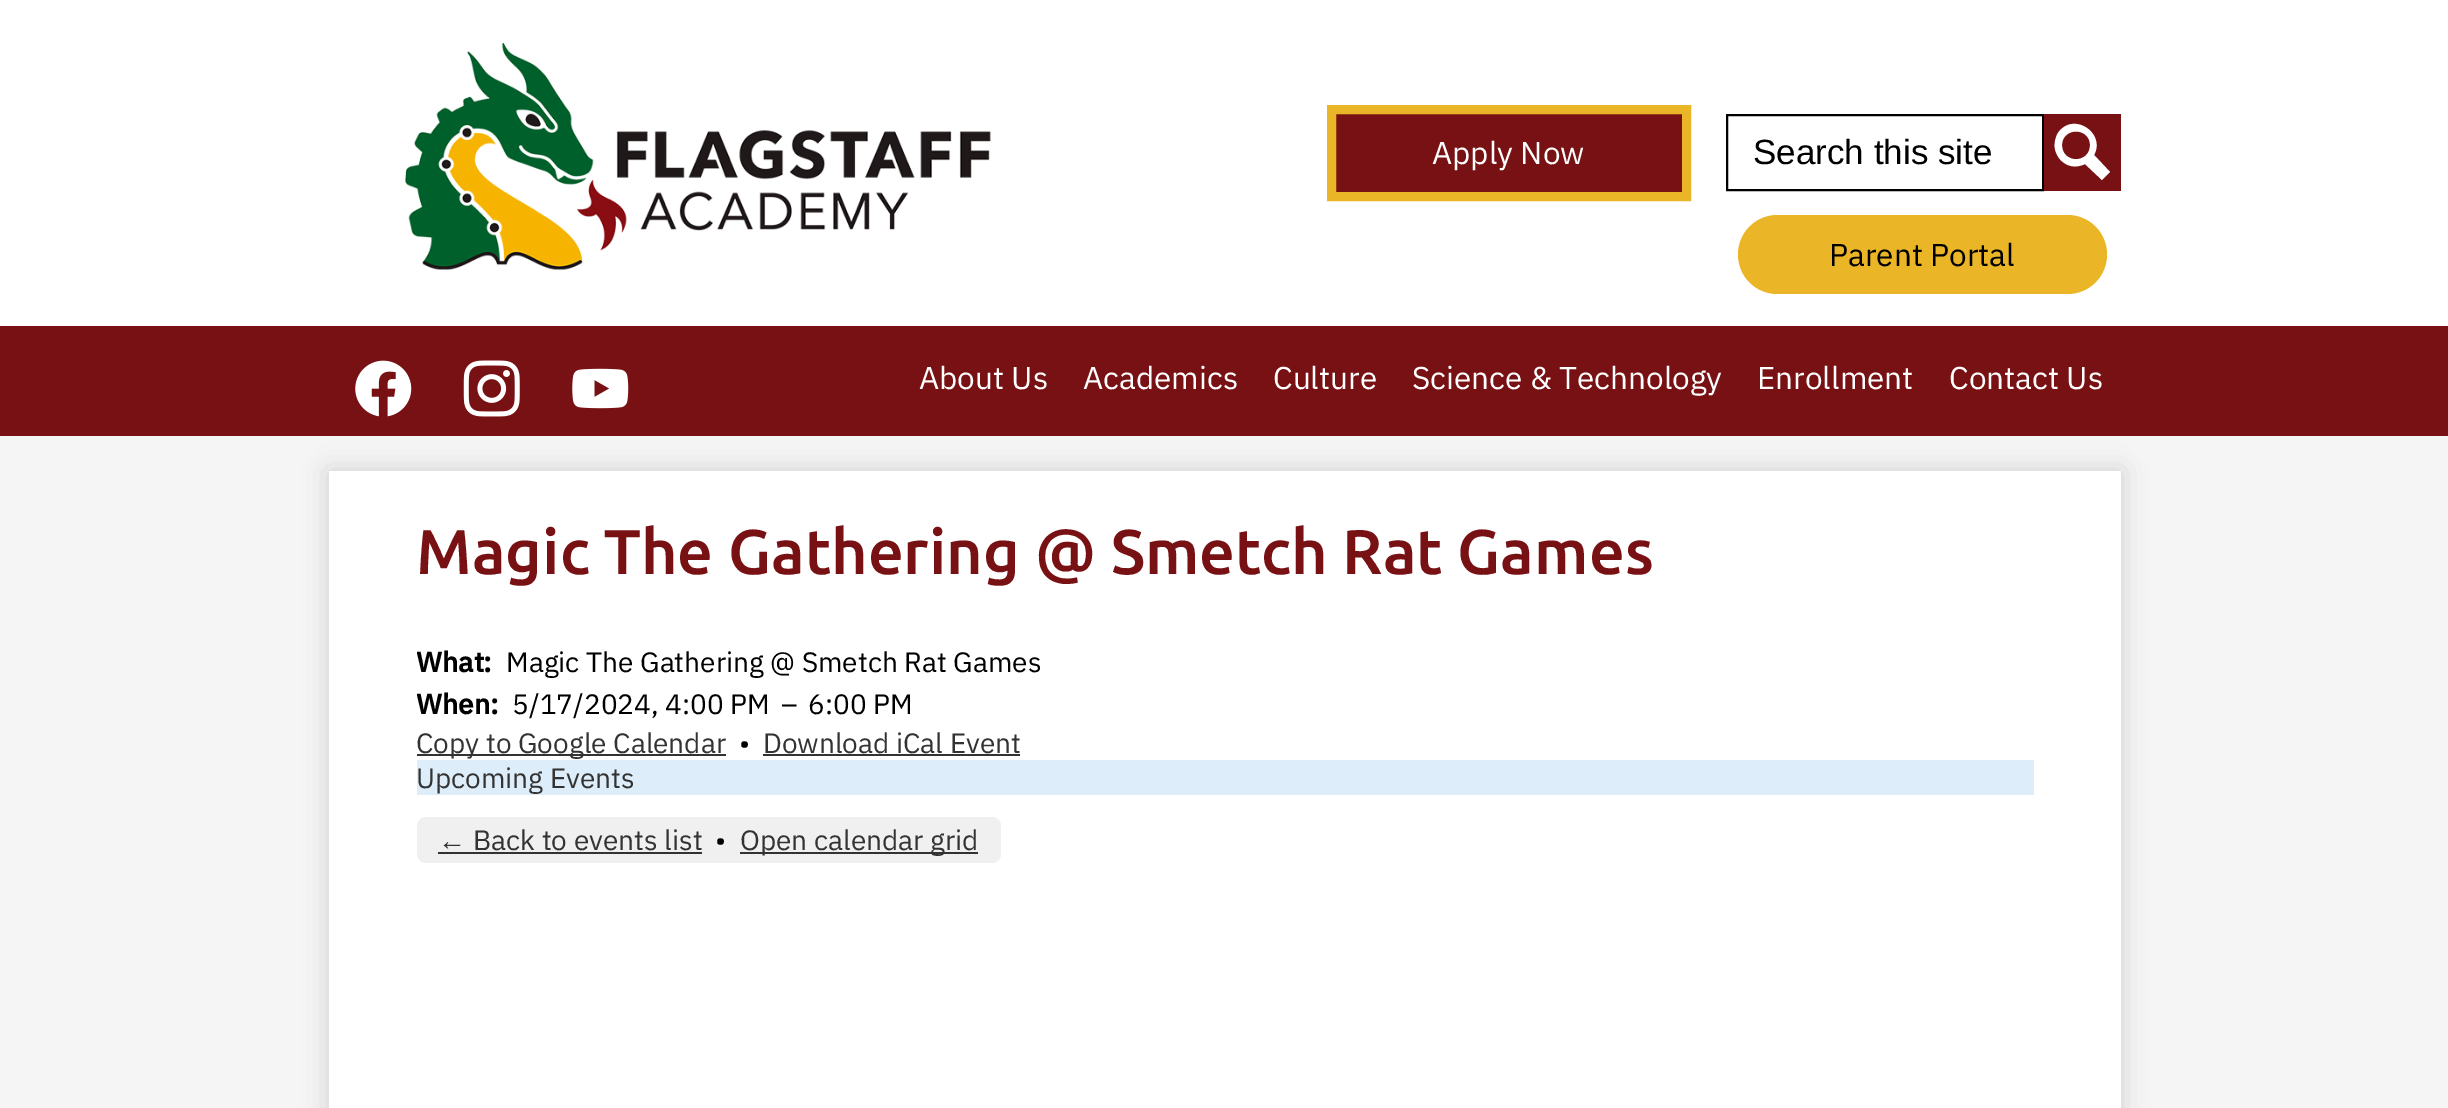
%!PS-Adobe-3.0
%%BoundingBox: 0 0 2448 1108
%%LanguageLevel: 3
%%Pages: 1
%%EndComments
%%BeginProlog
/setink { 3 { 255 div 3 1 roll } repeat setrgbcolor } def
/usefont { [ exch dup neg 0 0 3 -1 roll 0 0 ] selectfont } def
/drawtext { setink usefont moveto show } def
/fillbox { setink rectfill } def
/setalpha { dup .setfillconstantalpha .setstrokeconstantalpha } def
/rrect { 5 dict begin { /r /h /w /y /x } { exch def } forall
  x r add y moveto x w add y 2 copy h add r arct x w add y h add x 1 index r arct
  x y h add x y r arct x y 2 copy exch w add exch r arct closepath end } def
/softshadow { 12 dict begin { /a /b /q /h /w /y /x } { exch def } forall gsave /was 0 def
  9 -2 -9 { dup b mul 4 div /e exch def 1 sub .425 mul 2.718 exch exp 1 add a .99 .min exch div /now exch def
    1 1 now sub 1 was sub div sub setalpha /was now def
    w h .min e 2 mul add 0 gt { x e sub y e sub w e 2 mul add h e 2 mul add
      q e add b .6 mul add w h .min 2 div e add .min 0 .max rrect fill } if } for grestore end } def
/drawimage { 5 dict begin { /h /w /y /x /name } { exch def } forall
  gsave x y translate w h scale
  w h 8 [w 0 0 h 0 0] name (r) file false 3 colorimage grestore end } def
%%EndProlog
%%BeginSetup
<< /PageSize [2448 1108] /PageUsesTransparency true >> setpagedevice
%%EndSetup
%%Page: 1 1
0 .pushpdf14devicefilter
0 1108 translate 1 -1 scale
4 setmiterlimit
0 0 2448 1108 245 245 245 fillbox
0 0 2448 326 255 255 255 fillbox
(assets/img1.rgb) 405 42 586 228 drawimage
120 17 19 setink
1331.5 109.5 moveto 1686.5 109.5 lineto 1686.5 196.5 lineto 1331.5 196.5 lineto closepath gsave fill grestore
234 181 39 setink
9 setlinewidth
stroke
(Apply Now) 1432 164 /IBMPlexSans-Regular 31.5 255 255 255 drawtext
0 0 0 setink
2 setlinewidth
1727 115 316 75 rectstroke
(Search this site) 1753 164 /LiberationSans-Regular 35 0 0 0 drawtext
2044 114 77 77 120 17 19 fillbox
255 255 255 setink
2110 172 moveto 2094 155 lineto 2106 133 2073 111 2058 133 curveto 2055 138 2054 144 2055 149 curveto 2057 158 2063 164 2071 166 curveto 2076 167 2081 166 2085 164 curveto 2102 180 lineto closepath 2062 145 moveto 2062 127 2090 127 2090 145 curveto 2090 164 2062 164 2062 145 curveto closepath fill
234 181 39 setink
1738 215 369 79 39.5 rrect fill
(Parent Portal) 1829 266 /IBMPlexSans-Regular 31.5 0 0 0 drawtext
329 471 1792 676 0 13 0.15 softshadow
0 326 2448 110 120 17 19 fillbox
(assets/img2.rgb) 355 360 57 57 drawimage
(assets/img3.rgb) 463 360 57 57 drawimage
(assets/img4.rgb) 572 368 57 41 drawimage
(About Us) 919 389 /IBMPlexSans-Regular 31.5 255 255 255 drawtext
(Academics) 1083 389 /IBMPlexSans-Regular 31.5 255 255 255 drawtext
(Culture) 1273 389 /IBMPlexSans-Regular 31.5 255 255 255 drawtext
(Science & Technology) 1412 389 /IBMPlexSans-Regular 31.5 255 255 255 drawtext
(Enrollment) 1757 389 /IBMPlexSans-Regular 31.5 255 255 255 drawtext
(Contact Us) 1949 389 /IBMPlexSans-Regular 31.5 255 255 255 drawtext
329 471 1792 637 255 255 255 fillbox
(Magic The Gathering @ Smetch Rat Games) 416 574 /Ubuntu-Medium 63 120 17 19 drawtext
gsave
417 641 1617 84 rectclip
(What) 416 672 /IBMPlexSans-Bold 28 0 0 0 drawtext
grestore
(:) 483 672 /IBMPlexSans-Bold 28 0 0 0 drawtext
(Magic The Gathering @ Smetch Rat Games) 506 672 /IBMPlexSans-Regular 28 0 0 0 drawtext
gsave
417 641 1617 84 rectclip
(When) 416 714 /IBMPlexSans-Bold 28 0 0 0 drawtext
grestore
(:) 490 714 /IBMPlexSans-Bold 28 0 0 0 drawtext
(5/17/2024, 4:00 PM) 512 714 /IBMPlexSans-Regular 28 0 0 0 drawtext
(–) 781 714 /IBMPlexSans-Regular 28 0 0 0 drawtext
(6:00 PM) 808 714 /IBMPlexSans-Regular 28 0 0 0 drawtext
417 754 309 2 51 51 51 fillbox
(Copy to Google Calendar) 416 753 /IBMPlexSans-Regular 28 51 51 51 drawtext
(•) 739 753 /IBMPlexSans-Regular 28 0 0 0 drawtext
(Download iCal Event) 763 753 /IBMPlexSans-Regular 28 51 51 51 drawtext
763 754 257 2 51 51 51 fillbox
417 760 1617 35 221 238 250 fillbox
(Upcoming Events) 416 788 /IBMPlexSans-Regular 28 51 51 51 drawtext
240 240 240 setink
417 817 584 46 9 rrect fill
(←) 438 850 /LiberationSans-Regular 28 51 51 51 drawtext
438 852 264 2 51 51 51 fillbox
(Back to events list) 473 850 /IBMPlexSans-Regular 28 51 51 51 drawtext
(•) 715 850 /IBMPlexSans-Regular 28 0 0 0 drawtext
740 852 238 2 51 51 51 fillbox
(Open calendar grid) 740 850 /IBMPlexSans-Regular 28 51 51 51 drawtext
.poppdf14devicefilter showpage
%%EOF
